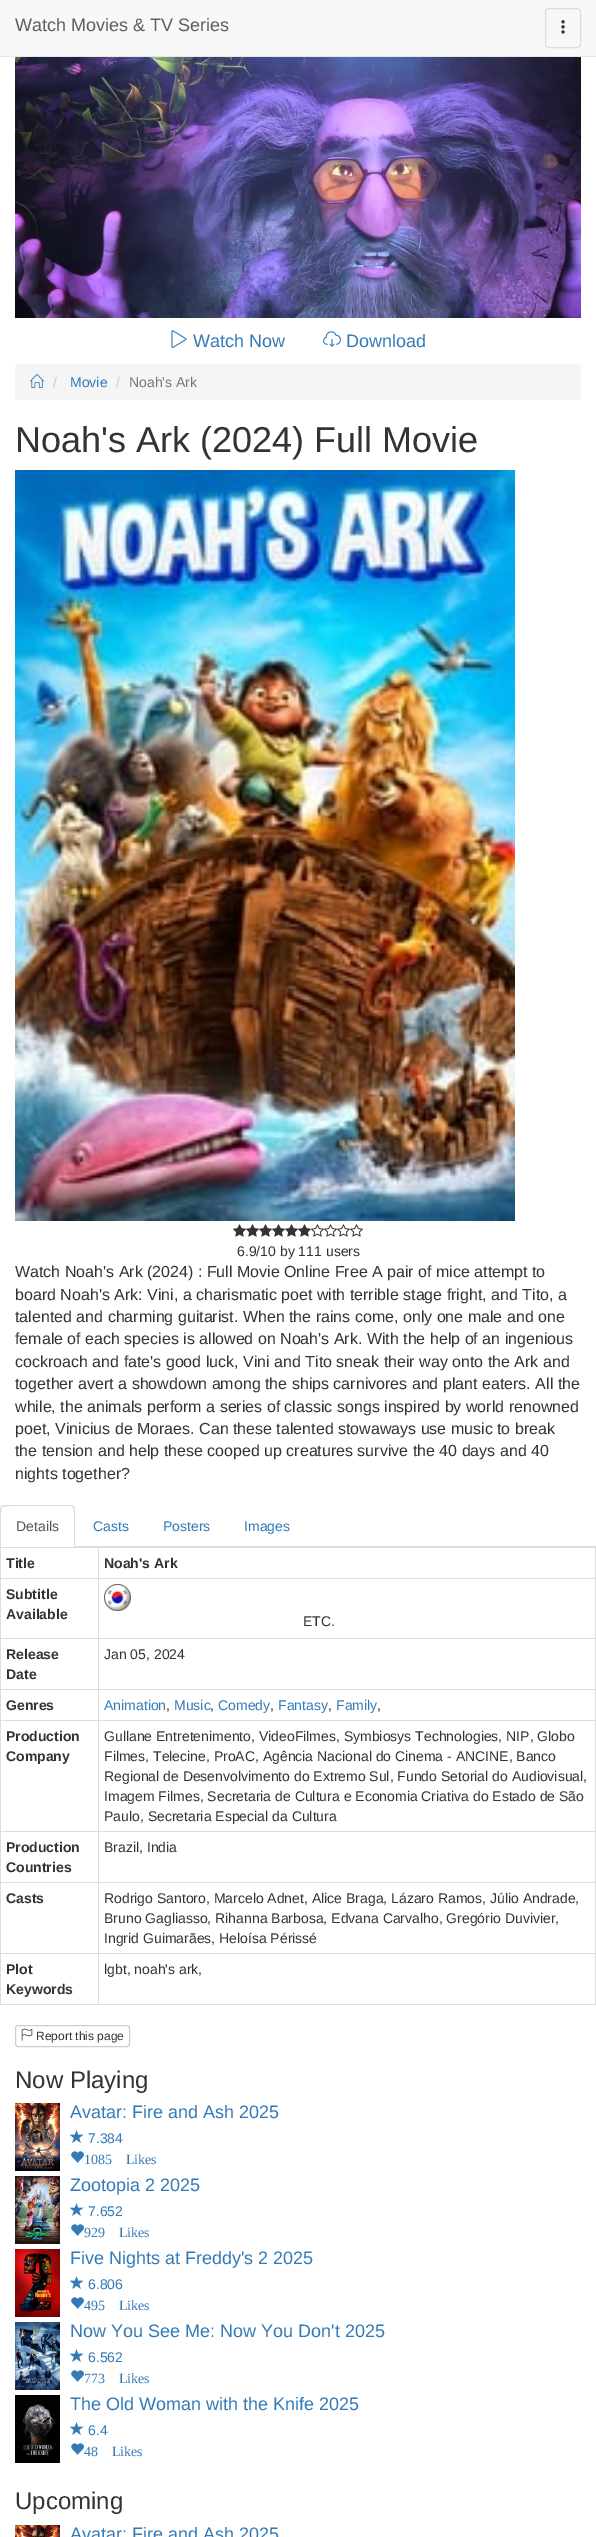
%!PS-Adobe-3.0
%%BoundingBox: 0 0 596 2537
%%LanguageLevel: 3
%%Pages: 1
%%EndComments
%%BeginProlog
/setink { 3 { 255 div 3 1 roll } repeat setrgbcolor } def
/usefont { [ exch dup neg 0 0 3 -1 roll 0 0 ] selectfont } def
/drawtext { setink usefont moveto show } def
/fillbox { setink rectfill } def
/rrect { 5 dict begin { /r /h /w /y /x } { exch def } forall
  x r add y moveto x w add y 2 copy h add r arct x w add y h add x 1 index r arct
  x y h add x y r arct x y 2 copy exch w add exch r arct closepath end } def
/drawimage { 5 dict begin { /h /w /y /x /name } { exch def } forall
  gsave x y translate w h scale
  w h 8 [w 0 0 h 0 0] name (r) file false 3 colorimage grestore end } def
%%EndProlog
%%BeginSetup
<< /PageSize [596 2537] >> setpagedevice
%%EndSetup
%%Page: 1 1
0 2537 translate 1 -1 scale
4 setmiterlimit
0 0 596 2537 255 255 255 fillbox
0 0 596 56 248 248 248 fillbox
0 56 596 1 231 231 231 fillbox
(Watch Movies & TV Series) 15 31 /LiberationSans-Regular 18 94 94 94 drawtext
221 221 221 setink
545.5 8.5 35 39 3.5 rrect stroke
(assets/img1.rgb) 561 20 4 14 drawimage
(assets/img2.rgb) 15 57 566 261 drawimage
(assets/img3.rgb) 171 330 16 19 drawimage
(Watch Now) 193 347 /LiberationSans-Regular 18 51 122 183 drawtext
(assets/img4.rgb) 323 331 18 16 drawimage
(Download) 346 347 /LiberationSans-Regular 18 51 122 183 drawtext
245 245 245 setink
15 364 566 36 4 rrect fill
(assets/img5.rgb) 30 373 14 15 drawimage
(/) 53 387 /LiberationSans-Regular 14 204 204 204 drawtext
(Movie) 70 387 /LiberationSans-Regular 14 51 122 183 drawtext
(/) 116 387 /LiberationSans-Regular 14 204 204 204 drawtext
(Noah's Ark) 129 387 /LiberationSans-Regular 14 119 119 119 drawtext
(Noah's Ark \(2024\) Full Movie) 15 452 /LiberationSans-Regular 36 51 51 51 drawtext
(assets/img6.rgb) 15 470 500 751 drawimage
(assets/img7.rgb) 233 1224 13 13 drawimage
(assets/img7.rgb) 246 1224 13 13 drawimage
(assets/img7.rgb) 259 1224 13 13 drawimage
(assets/img7.rgb) 272 1224 13 13 drawimage
(assets/img7.rgb) 285 1224 13 13 drawimage
(assets/img7.rgb) 298 1224 13 13 drawimage
(assets/img8.rgb) 311 1224 13 13 drawimage
(assets/img8.rgb) 324 1224 13 13 drawimage
(assets/img8.rgb) 337 1224 13 13 drawimage
(assets/img8.rgb) 350 1224 13 13 drawimage
(6.9/10 by 111 users) 237 1256 /LiberationSans-Regular 14 51 51 51 drawtext
(Watch Noah's Ark \(2024\) : Full Movie Online Free A pair of mice attempt to) 15 1277 /LiberationSans-Regular 16 51 51 51 drawtext
(board Noah's Ark: Vini, a charismatic poet with terrible stage fright, and Tito, a) 15 1300 /LiberationSans-Regular 16 51 51 51 drawtext
(talented and charming guitarist. When the rains come, only one male and one) 15 1322 /LiberationSans-Regular 16 51 51 51 drawtext
(female of each species is allowed on Noah's Ark. With the help of an ingenious) 15 1344 /LiberationSans-Regular 16 51 51 51 drawtext
(cockroach and fate's good luck, Vini and Tito sneak their way onto the Ark and) 15 1367 /LiberationSans-Regular 16 51 51 51 drawtext
(together avert a showdown among the ships carnivores and plant eaters. All the) 15 1389 /LiberationSans-Regular 16 51 51 51 drawtext
(while, the animals perform a series of classic songs inspired by world renowned) 15 1412 /LiberationSans-Regular 16 51 51 51 drawtext
(poet, Vinicius de Moraes. Can these talented stowaways use music to break) 15 1434 /LiberationSans-Regular 16 51 51 51 drawtext
(the tension and help these cooped up creatures survive the 40 days and 40) 15 1456 /LiberationSans-Regular 16 51 51 51 drawtext
(nights together?) 15 1479 /LiberationSans-Regular 16 51 51 51 drawtext
75 1546 521 1 221 221 221 fillbox
4 1505 moveto 1 1506 lineto 2 1507 lineto 4 1505 53 1506 60 1506 curveto 71 1506 lineto 73 1507 lineto 74 1506 lineto 71 1505 lineto closepath fill
75 1547 moveto 75 1509 lineto 75 1508 74 1507 74 1506 curveto 73 1507 lineto 75 1509 74 1541 74 1546 curveto closepath fill
0 1547 moveto 1 1546 lineto 1 1541 0 1509 2 1507 curveto 1 1506 lineto 0 1509 lineto closepath fill
(Details) 16 1531 /LiberationSans-Regular 14 85 85 85 drawtext
(Casts) 93 1531 /LiberationSans-Regular 14 51 122 183 drawtext
(Posters) 163 1531 /LiberationSans-Regular 14 51 122 183 drawtext
(Images) 244 1531 /LiberationSans-Regular 14 51 122 183 drawtext
0 1547 596 1 221 221 221 fillbox
595 1547 1 458 221 221 221 fillbox
0 2004 596 1 221 221 221 fillbox
0 1547 1 458 221 221 221 fillbox
(Title) 6 1568 /LiberationSans-Bold 14 51 51 51 drawtext
98 1578 498 1 221 221 221 fillbox
98 1638 498 1 221 221 221 fillbox
98 1689 498 1 221 221 221 fillbox
98 1720 498 1 221 221 221 fillbox
98 1831 498 1 221 221 221 fillbox
98 1882 498 1 221 221 221 fillbox
98 1953 498 1 221 221 221 fillbox
98 1953 1 52 221 221 221 fillbox
0 1953 99 1 221 221 221 fillbox
98 1882 1 72 221 221 221 fillbox
0 1882 99 1 221 221 221 fillbox
98 1831 1 52 221 221 221 fillbox
0 1831 99 1 221 221 221 fillbox
98 1720 1 112 221 221 221 fillbox
0 1720 99 1 221 221 221 fillbox
98 1689 1 32 221 221 221 fillbox
0 1689 99 1 221 221 221 fillbox
98 1638 1 52 221 221 221 fillbox
0 1638 99 1 221 221 221 fillbox
98 1578 1 61 221 221 221 fillbox
0 1578 99 1 221 221 221 fillbox
98 1547 1 32 221 221 221 fillbox
(Noah's Ark) 104 1568 /LiberationSans-Bold 14 51 51 51 drawtext
(Subtitle) 6 1599 /LiberationSans-Bold 14 51 51 51 drawtext
(Available) 6 1619 /LiberationSans-Bold 14 51 51 51 drawtext
(assets/img9.rgb) 104 1584 27 27 drawimage
(ETC.) 303 1626 /LiberationSans-Regular 14 51 51 51 drawtext
(Release) 6 1659 /LiberationSans-Bold 14 51 51 51 drawtext
(Date) 6 1679 /LiberationSans-Bold 14 51 51 51 drawtext
(Jan 05, 2024) 104 1659 /LiberationSans-Regular 14 51 51 51 drawtext
(Genres) 6 1710 /LiberationSans-Bold 14 51 51 51 drawtext
(Animation) 104 1710 /LiberationSans-Regular 14 51 122 183 drawtext
(,) 166 1710 /LiberationSans-Regular 14 51 51 51 drawtext
(Music) 174 1710 /LiberationSans-Regular 14 51 122 183 drawtext
(,) 210 1710 /LiberationSans-Regular 14 51 51 51 drawtext
(Comedy) 218 1710 /LiberationSans-Regular 14 51 122 183 drawtext
(,) 270 1710 /LiberationSans-Regular 14 51 51 51 drawtext
(Fantasy) 278 1710 /LiberationSans-Regular 14 51 122 183 drawtext
(,) 328 1710 /LiberationSans-Regular 14 51 51 51 drawtext
(Family) 336 1710 /LiberationSans-Regular 14 51 122 183 drawtext
(,) 377 1710 /LiberationSans-Regular 14 51 51 51 drawtext
(Production) 6 1741 /LiberationSans-Bold 14 51 51 51 drawtext
(Company) 6 1761 /LiberationSans-Bold 14 51 51 51 drawtext
(Gullane Entretenimento, VideoFilmes, Symbiosys Technologies, NIP, Globo) 104 1741 /LiberationSans-Regular 14 51 51 51 drawtext
(Filmes, Telecine, ProAC, Agência Nacional do Cinema - ANCINE, Banco) 104 1761 /LiberationSans-Regular 14 51 51 51 drawtext
(Regional de Desenvolvimento do Extremo Sul, Fundo Setorial do Audiovisual,) 104 1781 /LiberationSans-Regular 14 51 51 51 drawtext
(Imagem Filmes, Secretaria de Cultura e Economia Criativa do Estado de São) 104 1801 /LiberationSans-Regular 14 51 51 51 drawtext
(Paulo, Secretaria Especial da Cultura) 104 1821 /LiberationSans-Regular 14 51 51 51 drawtext
(Production) 6 1852 /LiberationSans-Bold 14 51 51 51 drawtext
(Countries) 6 1872 /LiberationSans-Bold 14 51 51 51 drawtext
(Brazil, India) 104 1852 /LiberationSans-Regular 14 51 51 51 drawtext
(Casts) 6 1903 /LiberationSans-Bold 14 51 51 51 drawtext
(Rodrigo Santoro, Marcelo Adnet, Alice Braga, Lázaro Ramos, Júlio Andrade,) 104 1903 /LiberationSans-Regular 14 51 51 51 drawtext
(Bruno Gagliasso, Rihanna Barbosa, Edvana Carvalho, Gregório Duvivier,) 104 1923 /LiberationSans-Regular 14 51 51 51 drawtext
(Ingrid Guimarães, Heloísa Périssé) 104 1943 /LiberationSans-Regular 14 51 51 51 drawtext
(Plot) 6 1974 /LiberationSans-Bold 14 51 51 51 drawtext
(Keywords) 6 1994 /LiberationSans-Bold 14 51 51 51 drawtext
(lgbt, noah's ark,) 104 1974 /LiberationSans-Regular 14 51 51 51 drawtext
204 204 204 setink
15.5 2025.5 114 21 2.5 rrect stroke
(assets/img10.rgb) 21 2028 12 13 drawimage
(Report this page) 36 2040 /LiberationSans-Regular 12 51 51 51 drawtext
(Now Playing) 15 2088 /LiberationSans-Regular 24 51 51 51 drawtext
(assets/img11.rgb) 15 2103 45 68 drawimage
(Avatar: Fire and Ash 2025) 70 2118 /LiberationSans-Regular 18 51 122 183 drawtext
(assets/img12.rgb) 70 2130 14 13 drawimage
(7.384) 88 2143 /LiberationSans-Regular 14 51 122 183 drawtext
(assets/img13.rgb) 71 2151 13 12 drawimage
/LiberationSerif-Regular 14 usefont
84 2164 moveto 10 0 32 (1085 Likes) widthshow
(assets/img14.rgb) 15 2176 45 68 drawimage
(Zootopia 2 2025) 70 2191 /LiberationSans-Regular 18 51 122 183 drawtext
(assets/img12.rgb) 70 2203 14 13 drawimage
(7.652) 88 2216 /LiberationSans-Regular 14 51 122 183 drawtext
(assets/img13.rgb) 71 2224 13 12 drawimage
/LiberationSerif-Regular 14 usefont
84 2237 moveto 10 0 32 (929 Likes) widthshow
(assets/img15.rgb) 15 2249 45 68 drawimage
(Five Nights at Freddy's 2 2025) 70 2264 /LiberationSans-Regular 18 51 122 183 drawtext
(assets/img12.rgb) 70 2276 14 13 drawimage
(6.806) 88 2289 /LiberationSans-Regular 14 51 122 183 drawtext
(assets/img13.rgb) 71 2297 13 12 drawimage
/LiberationSerif-Regular 14 usefont
84 2310 moveto 10 0 32 (495 Likes) widthshow
(assets/img16.rgb) 15 2322 45 68 drawimage
(Now You See Me: Now You Don't 2025) 70 2337 /LiberationSans-Regular 18 51 122 183 drawtext
(assets/img12.rgb) 70 2349 14 13 drawimage
(6.562) 88 2362 /LiberationSans-Regular 14 51 122 183 drawtext
(assets/img13.rgb) 71 2370 13 12 drawimage
/LiberationSerif-Regular 14 usefont
84 2383 moveto 10 0 32 (773 Likes) widthshow
(assets/img17.rgb) 15 2395 45 68 drawimage
(The Old Woman with the Knife 2025) 70 2410 /LiberationSans-Regular 18 51 122 183 drawtext
(assets/img12.rgb) 70 2422 14 13 drawimage
(6.4) 88 2435 /LiberationSans-Regular 14 51 122 183 drawtext
(assets/img13.rgb) 71 2443 13 12 drawimage
/LiberationSerif-Regular 14 usefont
84 2456 moveto 10 0 32 (48 Likes) widthshow
(Upcoming) 15 2509 /LiberationSans-Regular 24 51 51 51 drawtext
(assets/img18.rgb) 15 2525 45 12 drawimage
(Avatar: Fire and Ash 2025) 70 2540 /LiberationSans-Regular 18 51 122 183 drawtext
showpage
%%EOF
